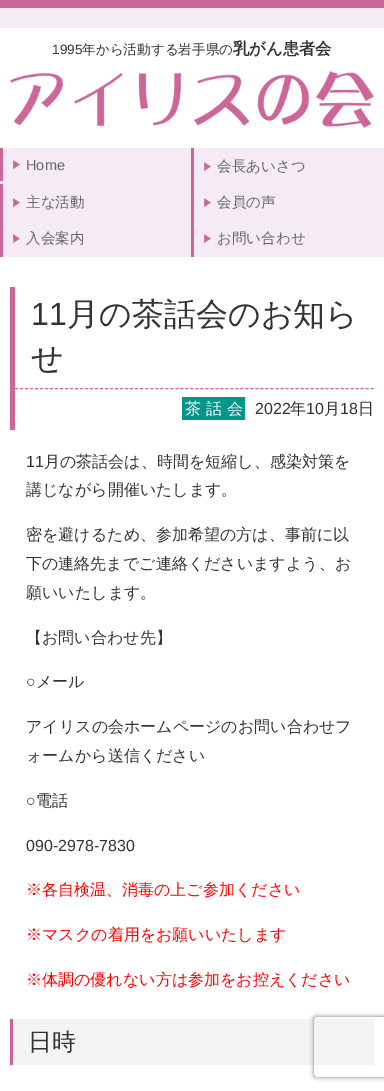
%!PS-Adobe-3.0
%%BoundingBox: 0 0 384 1091
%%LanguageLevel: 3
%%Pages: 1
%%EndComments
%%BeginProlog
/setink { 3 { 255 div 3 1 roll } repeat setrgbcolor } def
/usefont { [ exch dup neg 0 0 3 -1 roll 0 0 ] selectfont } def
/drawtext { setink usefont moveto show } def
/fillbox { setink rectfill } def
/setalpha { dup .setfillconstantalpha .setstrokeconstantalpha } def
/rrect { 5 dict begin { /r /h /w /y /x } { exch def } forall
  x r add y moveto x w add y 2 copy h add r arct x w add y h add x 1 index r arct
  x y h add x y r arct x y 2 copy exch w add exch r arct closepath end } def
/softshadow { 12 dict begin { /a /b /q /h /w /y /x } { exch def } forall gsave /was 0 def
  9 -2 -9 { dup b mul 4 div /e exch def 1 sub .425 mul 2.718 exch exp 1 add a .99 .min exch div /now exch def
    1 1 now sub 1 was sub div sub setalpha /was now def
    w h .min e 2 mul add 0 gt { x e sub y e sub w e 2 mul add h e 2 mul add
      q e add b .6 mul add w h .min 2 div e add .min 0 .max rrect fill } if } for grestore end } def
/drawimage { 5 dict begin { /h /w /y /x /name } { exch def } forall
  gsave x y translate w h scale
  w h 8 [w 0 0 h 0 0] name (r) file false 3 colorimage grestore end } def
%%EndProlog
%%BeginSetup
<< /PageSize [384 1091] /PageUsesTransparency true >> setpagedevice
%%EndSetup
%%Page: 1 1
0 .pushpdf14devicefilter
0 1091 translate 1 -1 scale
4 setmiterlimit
0 0 384 1091 255 255 255 fillbox
0 0 384 8 204 102 153 fillbox
0 8 384 20 245 235 245 fillbox
(1995) 52 54 /LiberationSans-Regular 13.6 51 51 51 drawtext
(年から活動する岩手県の) 82 54 /WenQuanYiZenHei-Medium 13.6 51 51 51 drawtext
(乳がん患者会) 233 54 /WenQuanYiZenHei-Bold 16.25 51 51 51 drawtext
(assets/img1.rgb) 10 71 364 57 drawimage
0 148 384 109 245 235 245 fillbox
(assets/img2.rgb) 13 160 7 9 drawimage
0 148 3 33 204 102 153 fillbox
(Home) 26 170 /LiberationSans-Regular 14.5 102 102 102 drawtext
(assets/img3.rgb) 204 162 7 9 drawimage
191 148 3 109 204 102 153 fillbox
(会長あいさつ) 217 171 /WenQuanYiZenHei-Medium 14.5 102 102 102 drawtext
(assets/img2.rgb) 13 198 7 9 drawimage
0 184 3 73 204 102 153 fillbox
(主な活動) 26 207 /WenQuanYiZenHei-Medium 14.5 102 102 102 drawtext
(assets/img3.rgb) 204 198 7 9 drawimage
(会員の声) 217 207 /WenQuanYiZenHei-Medium 14.5 102 102 102 drawtext
(assets/img2.rgb) 13 234 7 9 drawimage
(入会案内) 26 243 /WenQuanYiZenHei-Medium 14.5 102 102 102 drawtext
(assets/img3.rgb) 204 234 7 9 drawimage
(お問い合わせ) 217 243 /WenQuanYiZenHei-Medium 14.5 102 102 102 drawtext
10 287 5 143 204 102 153 fillbox
(11) 31 325 /LiberationSans-Regular 32 51 51 51 drawtext
(月の茶話会のお知ら) 67 325 /WenQuanYiZenHei-Medium 32 51 51 51 drawtext
(せ) 31 369 /WenQuanYiZenHei-Medium 32 51 51 51 drawtext
204 102 153 setink
[3 2.01] 0 setdash
15 388.5 moveto 374 388.5 lineto stroke
182 397 63 23 0 150 136 fillbox
(茶 話 会) 185 414 /WenQuanYiZenHei-Medium 16 255 255 255 drawtext
(2022) 255 414 /LiberationSans-Regular 16 51 51 51 drawtext
(年) 290 414 /WenQuanYiZenHei-Medium 16 51 51 51 drawtext
(10) 306 414 /LiberationSans-Regular 16 51 51 51 drawtext
(月) 324 414 /WenQuanYiZenHei-Medium 16 51 51 51 drawtext
(18) 340 414 /LiberationSans-Regular 16 51 51 51 drawtext
(日) 358 414 /WenQuanYiZenHei-Medium 16 51 51 51 drawtext
(11) 26 467 /LiberationSans-Regular 16 51 51 51 drawtext
(月の茶話会は、時間を短縮し、感染対策を) 44 467 /WenQuanYiZenHei-Medium 16 51 51 51 drawtext
(講じながら開催いたします。) 26 495 /WenQuanYiZenHei-Medium 16 51 51 51 drawtext
(密を避けるため、参加希望の方は、事前に以) 26 540 /WenQuanYiZenHei-Medium 16 51 51 51 drawtext
(下の連絡先までご連絡くださいますよう、お) 26 569 /WenQuanYiZenHei-Medium 16 51 51 51 drawtext
(願いいたします。) 26 598 /WenQuanYiZenHei-Medium 16 51 51 51 drawtext
(【お問い合わせ先】) 26 643 /WenQuanYiZenHei-Medium 16 51 51 51 drawtext
(○) 26 687 /LiberationSans-Regular 16 51 51 51 drawtext
(メール) 36 687 /WenQuanYiZenHei-Medium 16 51 51 51 drawtext
(アイリスの会ホームページのお問い合わせフ) 26 732 /WenQuanYiZenHei-Medium 16 51 51 51 drawtext
(ォームから送信ください) 26 761 /WenQuanYiZenHei-Medium 16 51 51 51 drawtext
(○) 26 806 /LiberationSans-Regular 16 51 51 51 drawtext
(電話) 36 806 /WenQuanYiZenHei-Medium 16 51 51 51 drawtext
(090-2978-7830) 26 851 /LiberationSans-Regular 16 51 51 51 drawtext
(※各自検温、消毒の上ご参加ください) 26 895 /WenQuanYiZenHei-Medium 16 255 0 0 drawtext
(※マスクの着用をお願いいたします) 26 940 /WenQuanYiZenHei-Medium 16 255 0 0 drawtext
(※体調の優れない方は参加をお控えください) 26 985 /WenQuanYiZenHei-Medium 16 255 0 0 drawtext
13 1019 361 46 243 243 243 fillbox
10 1019 3 46 204 102 153 fillbox
(日時) 28 1050 /WenQuanYiZenHei-Medium 24 51 51 51 drawtext
gsave
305 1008 moveto 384 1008 lineto 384 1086 lineto 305 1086 lineto closepath 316 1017 moveto 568 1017 lineto 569 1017 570 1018 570 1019 curveto 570 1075 lineto 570 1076 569 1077 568 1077 curveto 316 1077 lineto 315 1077 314 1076 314 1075 curveto 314 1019 lineto 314 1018 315 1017 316 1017 curveto closepath eoclip newpath
128 128 128 setink
314 1017 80 60 2 2.5 1 softshadow
grestore
.poppdf14devicefilter showpage
%%EOF
